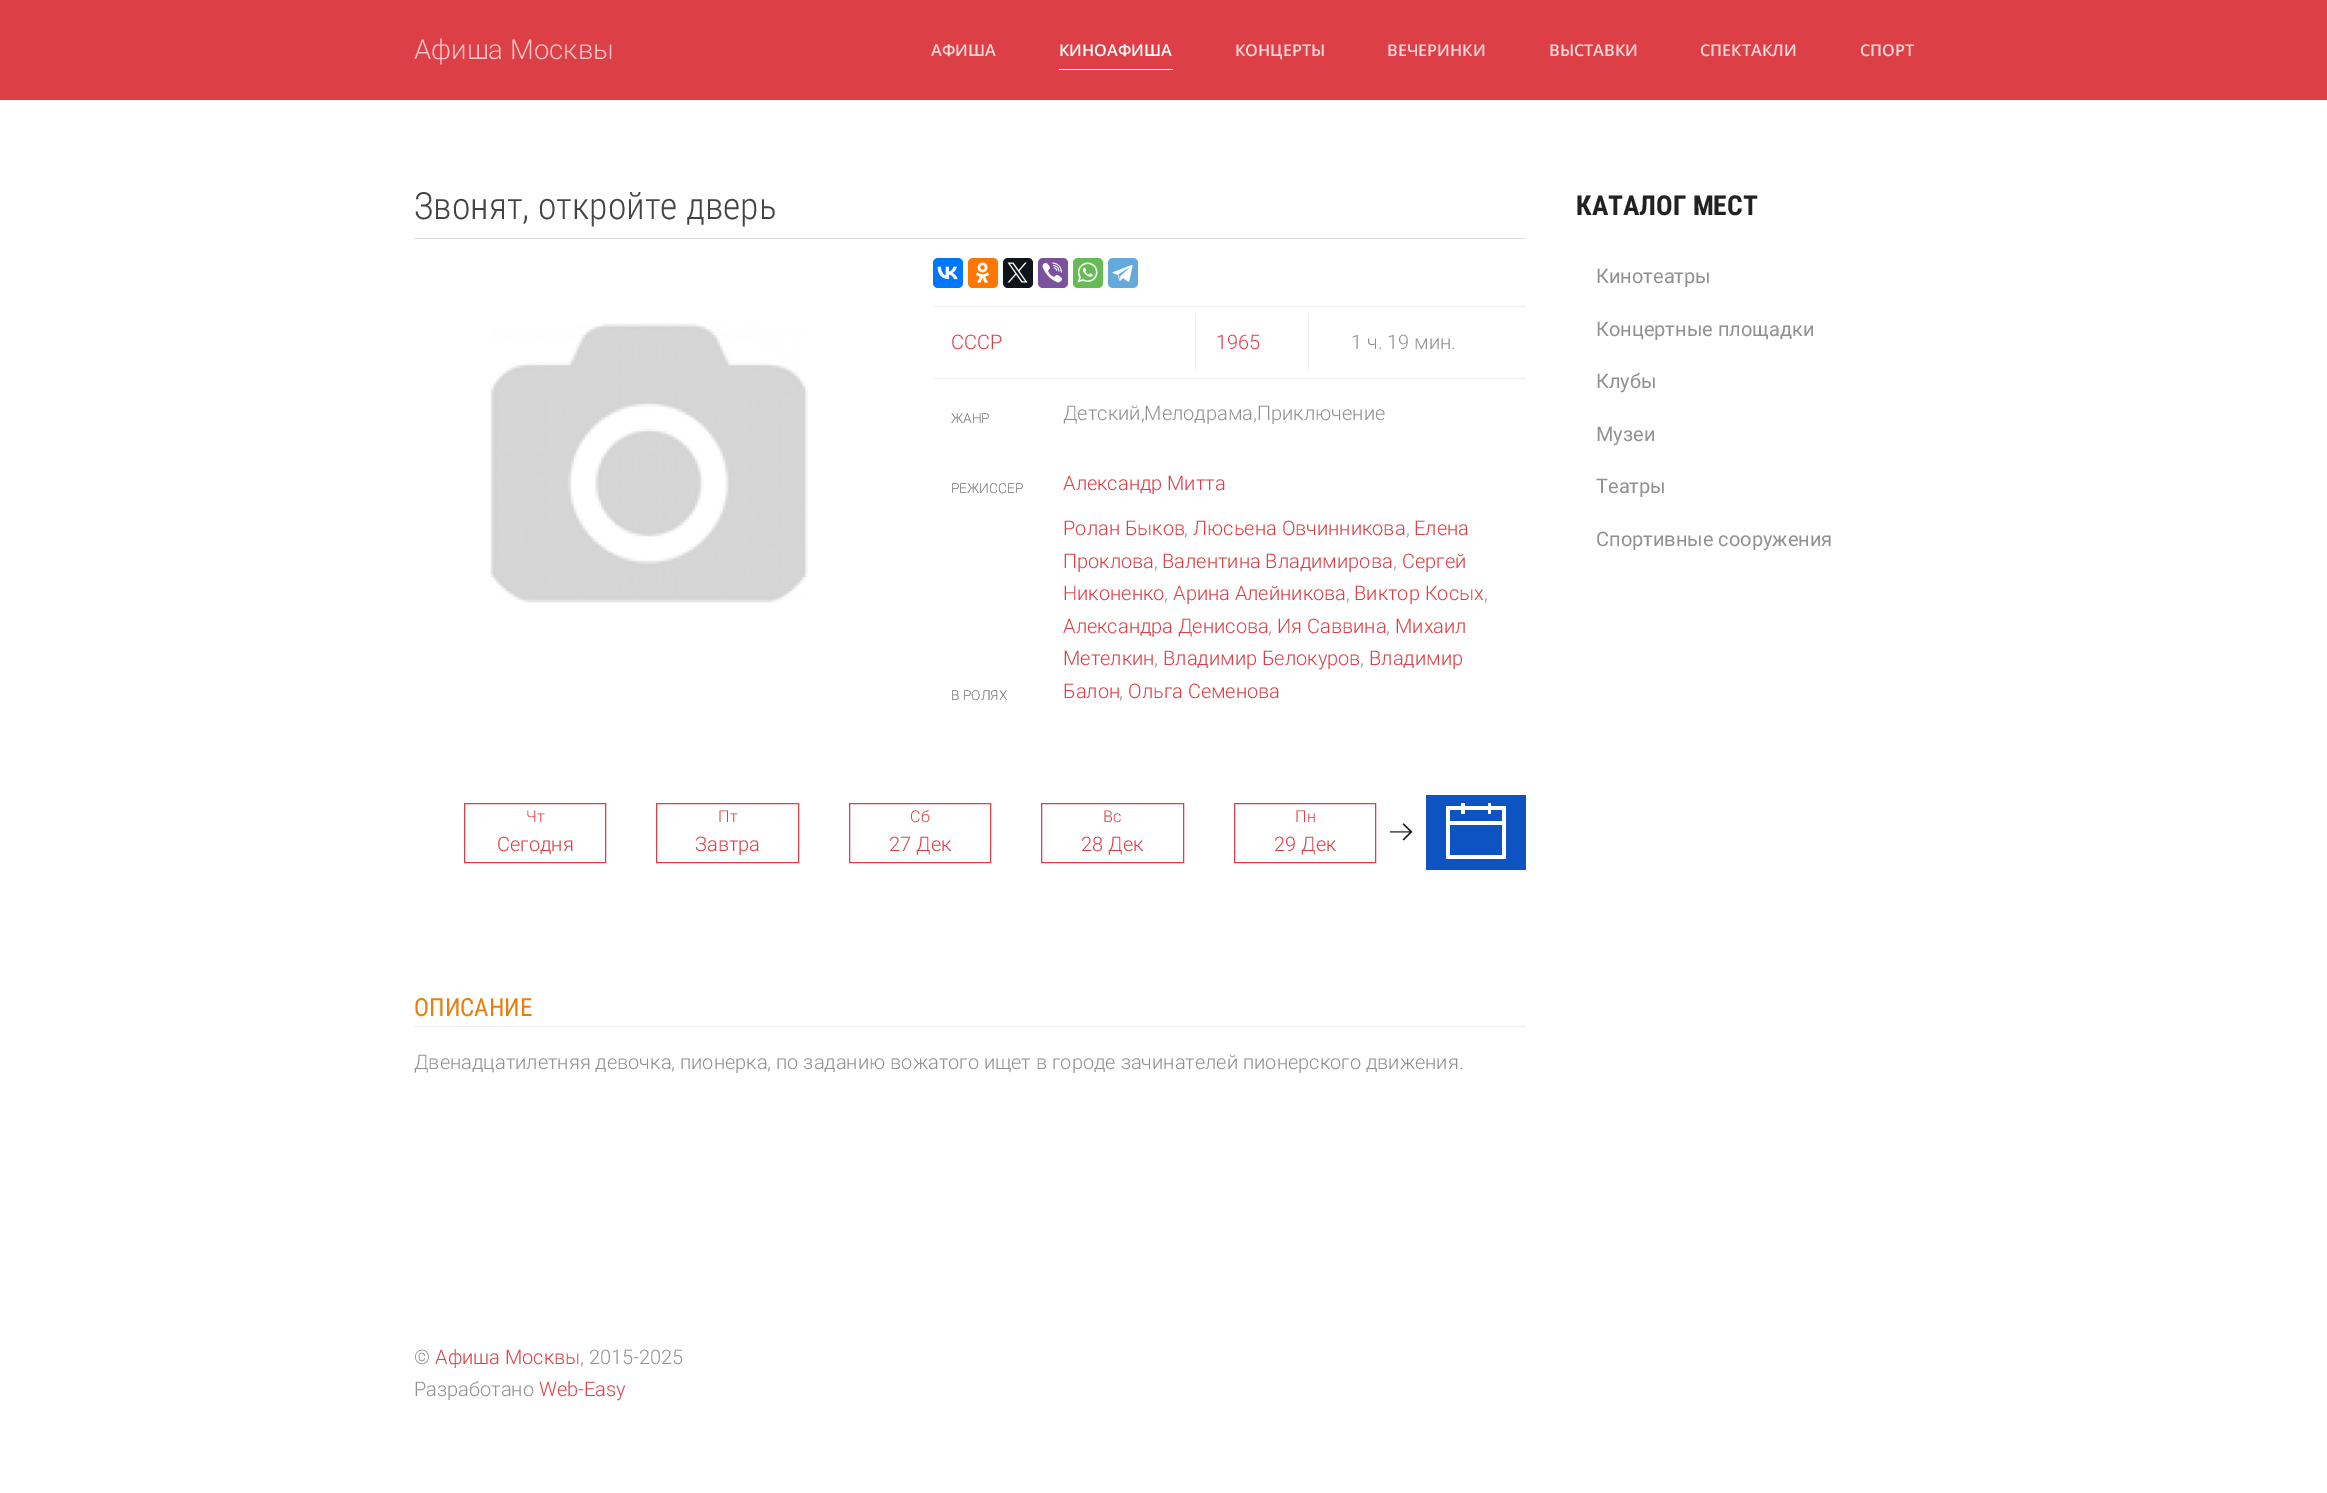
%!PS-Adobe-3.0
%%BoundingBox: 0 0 2327 1493
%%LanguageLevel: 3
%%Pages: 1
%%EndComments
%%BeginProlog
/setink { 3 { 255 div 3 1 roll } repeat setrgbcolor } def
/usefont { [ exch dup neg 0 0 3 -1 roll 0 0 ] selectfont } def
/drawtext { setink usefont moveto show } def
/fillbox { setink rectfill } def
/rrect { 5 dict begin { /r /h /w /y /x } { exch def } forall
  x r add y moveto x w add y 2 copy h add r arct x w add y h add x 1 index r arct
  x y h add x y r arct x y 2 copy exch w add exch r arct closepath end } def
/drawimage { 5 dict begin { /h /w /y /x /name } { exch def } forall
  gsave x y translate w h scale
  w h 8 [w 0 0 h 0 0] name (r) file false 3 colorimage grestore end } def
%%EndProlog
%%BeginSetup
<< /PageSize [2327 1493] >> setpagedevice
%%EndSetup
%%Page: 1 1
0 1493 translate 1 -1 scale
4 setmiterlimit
0 0 2327 1493 255 255 255 fillbox
0 0 2327 100 221 63 70 fillbox
(Афиша Москвы) 414 59 /Roboto-Light 27.5 245 197 200 drawtext
(АФИША) 931 56 /OpenSans-SemiBold 16.25 248 217 218 drawtext
(КИНОАФИША) 1059 56 /OpenSans-SemiBold 16.25 255 255 255 drawtext
1059 69 114 1 255 255 255 fillbox
(КОНЦЕРТЫ) 1235 56 /OpenSans-SemiBold 16.25 248 217 218 drawtext
(ВЕЧЕРИНКИ) 1387 56 /OpenSans-SemiBold 16.25 248 217 218 drawtext
(ВЫСТАВКИ) 1549 56 /OpenSans-SemiBold 16.25 248 217 218 drawtext
(СПЕКТАКЛИ) 1700 56 /OpenSans-SemiBold 16.25 248 217 218 drawtext
(СПОРТ) 1860 56 /OpenSans-SemiBold 16.25 248 217 218 drawtext
414 238 1112 1 221 221 221 fillbox
(Звонят, откройте дверь) 414 219 /RobotoCondensed-Light 37.5 68 68 68 drawtext
(assets/img1.rgb) 490 323 318 280 drawimage
0 119 255 setink
933 258 30 30 5 rrect fill
(assets/img2.rgb) 937 266 21 14 drawimage
255 119 0 setink
968 258 30 30 5 rrect fill
(assets/img3.rgb) 975 262 15 21 drawimage
15 20 25 setink
1003 258 30 30 5 rrect fill
(assets/img4.rgb) 1007 262 21 21 drawimage
123 81 157 setink
1038 258 30 30 5 rrect fill
(assets/img5.rgb) 1042 262 20 21 drawimage
101 188 84 setink
1073 258 30 30 5 rrect fill
(assets/img6.rgb) 1077 262 21 21 drawimage
100 169 220 setink
1108 258 30 30 5 rrect fill
(assets/img7.rgb) 1112 265 21 17 drawimage
933 306 593 1 238 238 238 fillbox
933 378 593 1 238 238 238 fillbox
(СССР) 951 349 /Roboto-Light 20 221 63 70 drawtext
1195 314 1 57 238 238 238 fillbox
(1965) 1216 349 /Roboto-Light 20 221 63 70 drawtext
1308 314 1 57 238 238 238 fillbox
(1 ч. 19 мин.) 1351 349 /Roboto-Light 20 145 145 145 drawtext
(ЖАНР) 951 423 /Roboto-Light 13.75 112 112 112 drawtext
(Детский,Мелодрама,Приключение) 1063 420 /Roboto-Light 20 145 145 145 drawtext
(РЕЖИССЕР) 951 493 /Roboto-Light 13.75 112 112 112 drawtext
(Александр Митта) 1063 490 /Roboto-Light 20 221 63 70 drawtext
(В РОЛЯХ) 951 700 /Roboto-Light 13.75 112 112 112 drawtext
(Ролан Быков) 1063 535 /Roboto-Light 20 221 63 70 drawtext
(,) 1184 535 /Roboto-Light 20 145 145 145 drawtext
(Люсьена Овчинникова) 1193 535 /Roboto-Light 20 221 63 70 drawtext
(,) 1406 535 /Roboto-Light 20 145 145 145 drawtext
(Елена) 1414 535 /Roboto-Light 20 221 63 70 drawtext
(Проклова) 1063 568 /Roboto-Light 20 221 63 70 drawtext
(,) 1154 568 /Roboto-Light 20 145 145 145 drawtext
(Валентина Владимирова) 1162 568 /Roboto-Light 20 221 63 70 drawtext
(,) 1393 568 /Roboto-Light 20 145 145 145 drawtext
(Сергей) 1402 568 /Roboto-Light 20 221 63 70 drawtext
(Никоненко) 1063 600 /Roboto-Light 20 221 63 70 drawtext
(,) 1164 600 /Roboto-Light 20 145 145 145 drawtext
(Арина Алейникова) 1173 600 /Roboto-Light 20 221 63 70 drawtext
(,) 1346 600 /Roboto-Light 20 145 145 145 drawtext
(Виктор Косых) 1354 600 /Roboto-Light 20 221 63 70 drawtext
(,) 1484 600 /Roboto-Light 20 145 145 145 drawtext
(Александра Денисова) 1063 633 /Roboto-Light 20 221 63 70 drawtext
(,) 1268 633 /Roboto-Light 20 145 145 145 drawtext
(Ия Саввина) 1277 633 /Roboto-Light 20 221 63 70 drawtext
(,) 1386 633 /Roboto-Light 20 145 145 145 drawtext
(Михаил) 1395 633 /Roboto-Light 20 221 63 70 drawtext
(Метелкин) 1063 665 /Roboto-Light 20 221 63 70 drawtext
(,) 1154 665 /Roboto-Light 20 145 145 145 drawtext
(Владимир Белокуров) 1163 665 /Roboto-Light 20 221 63 70 drawtext
(,) 1360 665 /Roboto-Light 20 145 145 145 drawtext
(Владимир) 1369 665 /Roboto-Light 20 221 63 70 drawtext
(Балон) 1063 698 /Roboto-Light 20 221 63 70 drawtext
(,) 1119 698 /Roboto-Light 20 145 145 145 drawtext
(Ольга Семенова) 1128 698 /Roboto-Light 20 221 63 70 drawtext
464.5 803.5 141 59 rectstroke
(Чт) 526 822 /Roboto-Light 16.25 221 63 70 drawtext
(Сегодня) 497 851 /Roboto-Light 20 221 63 70 drawtext
656.5 803.5 142 59 rectstroke
(Пт) 718 822 /Roboto-Light 16.25 221 63 70 drawtext
(Завтра) 695 851 /Roboto-Light 20 221 63 70 drawtext
849.5 803.5 141 59 rectstroke
(Сб) 910 822 /Roboto-Light 16.25 221 63 70 drawtext
(27 Дек) 889 851 /Roboto-Light 20 221 63 70 drawtext
1041.5 803.5 142 59 rectstroke
(Вс) 1103 822 /Roboto-Light 16.25 221 63 70 drawtext
(28 Дек) 1081 851 /Roboto-Light 20 221 63 70 drawtext
1234.5 803.5 141 59 rectstroke
(Пн) 1295 822 /Roboto-Light 16.25 221 63 70 drawtext
(29 Дек) 1274 851 /Roboto-Light 20 221 63 70 drawtext
(assets/img8.rgb) 1390 823 23 18 drawimage
1426 795 100 75 13 83 194 fillbox
255 255 255 setink
1446 806 moveto 1446 859 lineto 1506 859 lineto 1506 806 lineto closepath 1502 855 moveto 1450 855 lineto 1450 825 lineto 1502 825 lineto closepath 1502 821 moveto 1450 821 lineto 1450 810 lineto 1502 810 lineto closepath fill
1461 803 4 11 255 255 255 fillbox
1488 803 3 11 255 255 255 fillbox
414 1026 1112 1 238 238 238 fillbox
(ОПИСАНИЕ) 414 1016 /RobotoCondensed-Regular 25 232 126 12 drawtext
(Двенадцатилетняя девочка, пионерка, по заданию вожатого ищет в городе зачинателей пионерского движения.) 414 1069 /Roboto-Light 20 145 145 145 drawtext
(КАТАЛОГ МЕСТ) 1576 215 /RobotoCondensed-Bold 27.5 34 34 34 drawtext
(Кинотеатры) 1596 283 /Roboto-Regular 20 145 145 145 drawtext
(Концертные площадки) 1596 336 /Roboto-Regular 20 145 145 145 drawtext
(Клубы) 1596 388 /Roboto-Regular 20 145 145 145 drawtext
(Музеи) 1596 441 /Roboto-Regular 20 145 145 145 drawtext
(Театры) 1596 493 /Roboto-Regular 20 145 145 145 drawtext
(Спортивные сооружения) 1596 546 /Roboto-Regular 20 145 145 145 drawtext
(©) 414 1364 /Roboto-Light 20 145 145 145 drawtext
(Афиша Москвы) 435 1364 /Roboto-Light 20 221 63 70 drawtext
(, 2015-2025) 580 1364 /Roboto-Light 20 145 145 145 drawtext
(Разработано) 414 1396 /Roboto-Light 20 145 145 145 drawtext
(Web-Easy) 539 1396 /Roboto-Light 20 221 63 70 drawtext
showpage
%%EOF
